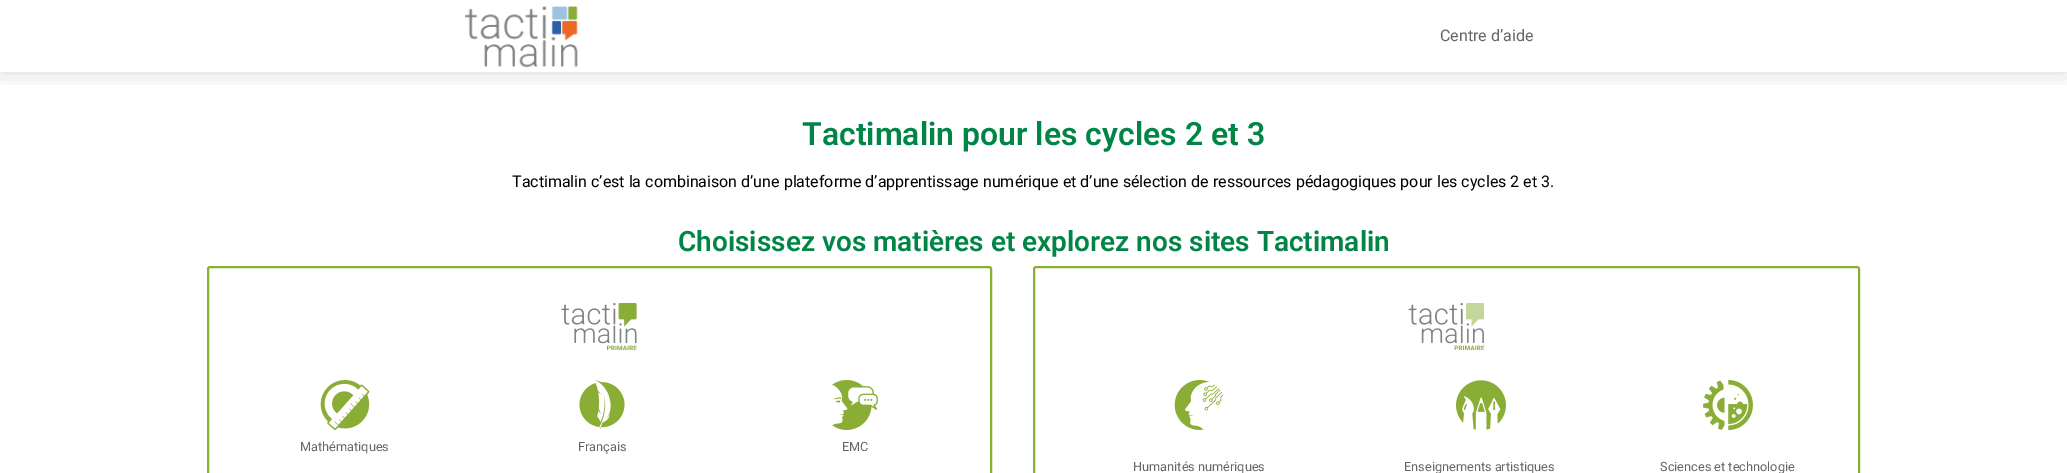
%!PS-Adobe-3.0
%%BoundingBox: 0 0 2067 473
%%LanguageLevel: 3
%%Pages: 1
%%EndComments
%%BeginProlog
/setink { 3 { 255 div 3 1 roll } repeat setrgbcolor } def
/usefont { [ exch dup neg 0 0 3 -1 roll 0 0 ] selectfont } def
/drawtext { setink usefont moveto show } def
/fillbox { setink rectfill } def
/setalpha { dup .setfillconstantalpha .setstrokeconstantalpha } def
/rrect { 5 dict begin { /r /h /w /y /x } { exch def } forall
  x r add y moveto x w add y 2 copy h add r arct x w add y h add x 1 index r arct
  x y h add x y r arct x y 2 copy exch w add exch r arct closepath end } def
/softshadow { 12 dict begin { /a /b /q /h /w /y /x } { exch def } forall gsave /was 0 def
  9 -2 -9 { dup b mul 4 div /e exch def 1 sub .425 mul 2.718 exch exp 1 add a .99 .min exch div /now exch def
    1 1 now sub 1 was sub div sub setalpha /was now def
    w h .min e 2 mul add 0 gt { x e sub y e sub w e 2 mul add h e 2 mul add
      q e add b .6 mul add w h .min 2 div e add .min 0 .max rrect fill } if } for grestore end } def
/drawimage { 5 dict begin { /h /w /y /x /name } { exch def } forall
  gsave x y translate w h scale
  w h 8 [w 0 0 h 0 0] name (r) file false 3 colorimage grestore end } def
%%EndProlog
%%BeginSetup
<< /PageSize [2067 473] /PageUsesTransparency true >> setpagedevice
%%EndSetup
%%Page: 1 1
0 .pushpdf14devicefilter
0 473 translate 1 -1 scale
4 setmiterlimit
0 0 2067 473 255 255 255 fillbox
gsave
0 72 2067 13 rectclip
0 0 0 setink
0 0 2067 72 0 12 0.15 softshadow
grestore
(assets/img1.rgb) 465 5 113 63 drawimage
(Centre d’aide) 1440 41 /Roboto-Regular 16 102 102 102 drawtext
(Tactimalin pour les cycles 2 et 3) 802 145 /Roboto-SemiBold 32 0 133 71 drawtext
(Tactimalin c’est la combinaison d’une plateforme d’apprentissage numérique et d’une sélection de ressources pédagogiques pour les cycles 2 et 3.) 512 187 /Roboto-Regular 16 0 0 0 drawtext
(Choisissez vos matières et explorez nos sites Tactimalin) 678 251 /Roboto-SemiBold 28 0 133 71 drawtext
138 173 54 setink
2 setlinewidth
208 267 783 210 2 rrect stroke
(assets/img2.rgb) 561 303 76 47 drawimage
(assets/img3.rgb) 320 380 50 50 drawimage
(Mathématiques) 300 451 /Roboto-Regular 12.75 102 102 102 drawtext
(assets/img4.rgb) 579 380 46 50 drawimage
(Français) 578 451 /Roboto-Regular 12.75 102 102 102 drawtext
(assets/img5.rgb) 832 380 46 50 drawimage
(EMC) 842 451 /Roboto-Regular 12.75 102 102 102 drawtext
138 173 54 setink
1034 267 825 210 2 rrect stroke
(assets/img6.rgb) 1408 303 77 47 drawimage
(assets/img7.rgb) 1174 380 50 50 drawimage
(Humanités numériques) 1133 471 /Roboto-Regular 12.75 102 102 102 drawtext
(assets/img8.rgb) 1456 380 50 50 drawimage
(Enseignements artistiques) 1404 471 /Roboto-Regular 12.75 102 102 102 drawtext
(assets/img9.rgb) 1703 380 50 50 drawimage
(Sciences et technologie) 1660 471 /Roboto-Regular 12.75 102 102 102 drawtext
.poppdf14devicefilter showpage
%%EOF
